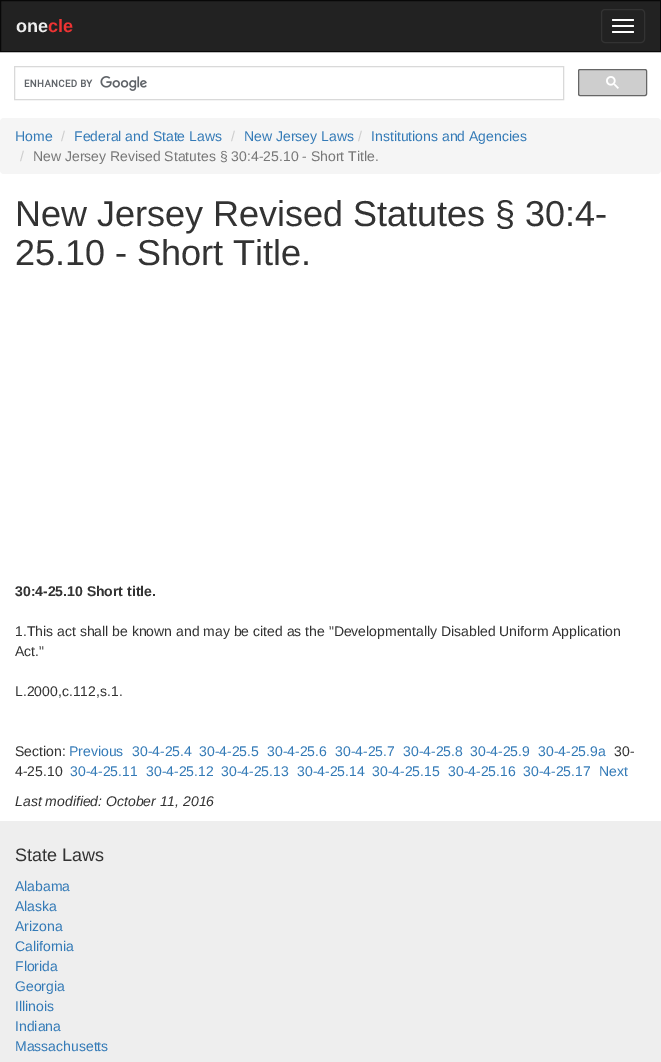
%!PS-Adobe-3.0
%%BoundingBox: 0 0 661 1062
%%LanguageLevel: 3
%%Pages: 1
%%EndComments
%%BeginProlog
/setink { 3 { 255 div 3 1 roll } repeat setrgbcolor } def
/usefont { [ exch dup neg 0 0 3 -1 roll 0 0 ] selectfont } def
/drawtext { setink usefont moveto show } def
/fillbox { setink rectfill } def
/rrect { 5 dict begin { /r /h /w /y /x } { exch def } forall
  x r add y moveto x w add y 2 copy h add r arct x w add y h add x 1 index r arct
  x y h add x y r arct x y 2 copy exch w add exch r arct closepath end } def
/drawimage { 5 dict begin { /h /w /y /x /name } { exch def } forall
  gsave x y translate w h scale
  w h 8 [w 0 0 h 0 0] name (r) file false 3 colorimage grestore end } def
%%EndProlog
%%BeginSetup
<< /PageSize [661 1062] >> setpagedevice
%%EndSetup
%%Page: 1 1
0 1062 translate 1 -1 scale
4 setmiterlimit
0 0 661 1062 255 255 255 fillbox
34 34 34 setink
0.5 0.5 moveto 660.5 0.5 lineto 660.5 51.5 lineto 0.5 51.5 lineto closepath gsave fill grestore
8 8 8 setink
stroke
(one) 16 32 /LiberationSans-Bold 18 238 238 238 drawtext
(cle) 48 32 /LiberationSans-Bold 18 238 51 51 drawtext
51 51 51 setink
601.5 9.5 43 33 3.5 rrect stroke
255 255 255 setink
612 19 22 2 1 rrect fill
612 25 22 2 1 rrect fill
612 31 22 2 1 rrect fill
217 217 217 setink
14.5 66.5 549 33 rectstroke
(assets/img1.rgb) 24 76 123 15 drawimage
206 206 206 setink
578.5 69.5 68 26 1.5 rrect gsave fill grestore
102 102 102 setink
stroke
(assets/img2.rgb) 606 76 13 13 drawimage
245 245 245 setink
0 118 661 56 4 rrect fill
(Home) 15 141 /LiberationSans-Regular 14 51 122 183 drawtext
(/) 61 141 /LiberationSans-Regular 14 204 204 204 drawtext
(Federal and State Laws) 74 141 /LiberationSans-Regular 14 51 122 183 drawtext
(/) 231 141 /LiberationSans-Regular 14 204 204 204 drawtext
(New Jersey Laws) 244 141 /LiberationSans-Regular 14 51 122 183 drawtext
(/) 358 141 /LiberationSans-Regular 14 204 204 204 drawtext
(Institutions and Agencies) 371 141 /LiberationSans-Regular 14 51 122 183 drawtext
(/) 20 161 /LiberationSans-Regular 14 204 204 204 drawtext
(New Jersey Revised Statutes § 30:4-25.10 - Short Title.) 33 161 /LiberationSans-Regular 14 119 119 119 drawtext
(New Jersey Revised Statutes § 30:4-) 15 226 /LiberationSans-Regular 36 51 51 51 drawtext
(25.10 - Short Title.) 15 265 /LiberationSans-Regular 36 51 51 51 drawtext
(30:4-25.10 Short title.) 15 596 /LiberationSans-Bold 14 51 51 51 drawtext
(1.This act shall be known and may be cited as the "Developmentally Disabled Uniform Application) 15 636 /LiberationSans-Regular 14 51 51 51 drawtext
(Act.") 15 656 /LiberationSans-Regular 14 51 51 51 drawtext
(L.2000,c.112,s.1.) 15 696 /LiberationSans-Regular 14 51 51 51 drawtext
(Section:) 15 756 /LiberationSans-Regular 14 51 51 51 drawtext
(Previous) 69 756 /LiberationSans-Regular 14 51 122 183 drawtext
(30-4-25.4) 132 756 /LiberationSans-Regular 14 51 122 183 drawtext
(30-4-25.5) 199 756 /LiberationSans-Regular 14 51 122 183 drawtext
(30-4-25.6) 267 756 /LiberationSans-Regular 14 51 122 183 drawtext
(30-4-25.7) 335 756 /LiberationSans-Regular 14 51 122 183 drawtext
(30-4-25.8) 403 756 /LiberationSans-Regular 14 51 122 183 drawtext
(30-4-25.9) 470 756 /LiberationSans-Regular 14 51 122 183 drawtext
(30-4-25.9a) 538 756 /LiberationSans-Regular 14 51 122 183 drawtext
(30-) 614 756 /LiberationSans-Regular 14 51 51 51 drawtext
(4-25.10) 15 776 /LiberationSans-Regular 14 51 51 51 drawtext
(30-4-25.11) 70 776 /LiberationSans-Regular 14 51 122 183 drawtext
(30-4-25.12) 146 776 /LiberationSans-Regular 14 51 122 183 drawtext
(30-4-25.13) 221 776 /LiberationSans-Regular 14 51 122 183 drawtext
(30-4-25.14) 297 776 /LiberationSans-Regular 14 51 122 183 drawtext
(30-4-25.15) 372 776 /LiberationSans-Regular 14 51 122 183 drawtext
(30-4-25.16) 448 776 /LiberationSans-Regular 14 51 122 183 drawtext
(30-4-25.17) 523 776 /LiberationSans-Regular 14 51 122 183 drawtext
(Next) 599 776 /LiberationSans-Regular 14 51 122 183 drawtext
(Last modified: October 11, 2016) 15 806 /LiberationSans-Italic 14 51 51 51 drawtext
0 821 661 241 238 238 238 fillbox
(State Laws) 15 861 /LiberationSans-Regular 18 51 51 51 drawtext
(Alabama) 15 891 /LiberationSans-Regular 14 51 122 183 drawtext
(Alaska) 15 911 /LiberationSans-Regular 14 51 122 183 drawtext
(Arizona) 15 931 /LiberationSans-Regular 14 51 122 183 drawtext
(California) 15 951 /LiberationSans-Regular 14 51 122 183 drawtext
(Florida) 15 971 /LiberationSans-Regular 14 51 122 183 drawtext
(Georgia) 15 991 /LiberationSans-Regular 14 51 122 183 drawtext
(Illinois) 15 1011 /LiberationSans-Regular 14 51 122 183 drawtext
(Indiana) 15 1031 /LiberationSans-Regular 14 51 122 183 drawtext
(Massachusetts) 15 1051 /LiberationSans-Regular 14 51 122 183 drawtext
showpage
%%EOF
